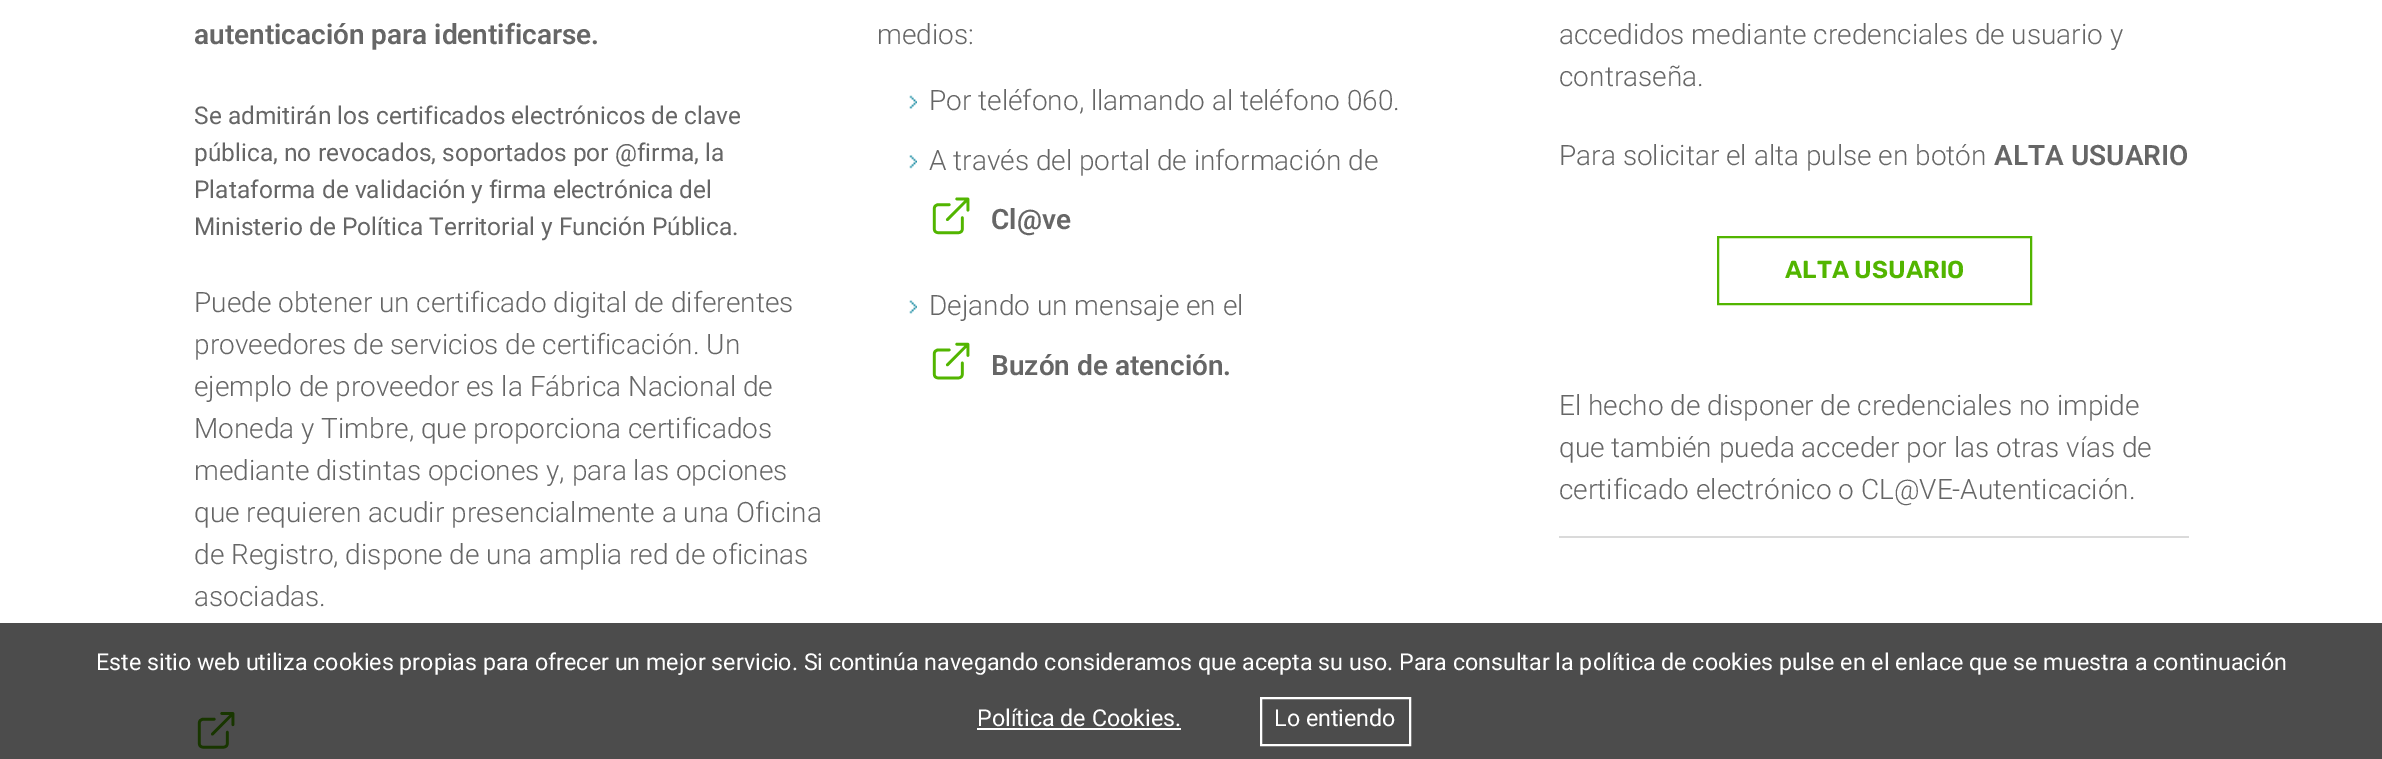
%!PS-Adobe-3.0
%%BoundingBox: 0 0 2382 759
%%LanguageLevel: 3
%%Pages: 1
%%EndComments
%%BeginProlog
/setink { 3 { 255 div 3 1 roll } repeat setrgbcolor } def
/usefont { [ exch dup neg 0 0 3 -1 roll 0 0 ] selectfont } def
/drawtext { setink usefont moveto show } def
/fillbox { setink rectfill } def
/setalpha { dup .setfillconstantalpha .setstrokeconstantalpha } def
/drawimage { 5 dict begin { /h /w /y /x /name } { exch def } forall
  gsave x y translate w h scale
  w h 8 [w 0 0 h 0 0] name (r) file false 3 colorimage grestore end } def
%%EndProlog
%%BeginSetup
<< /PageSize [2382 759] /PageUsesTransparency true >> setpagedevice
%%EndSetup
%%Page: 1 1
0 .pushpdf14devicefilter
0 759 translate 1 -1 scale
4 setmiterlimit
0 0 2382 759 255 255 255 fillbox
(autenticación para identificarse.) 194 44 /Roboto-SemiBold 28 102 102 102 drawtext
(Se admitirán los certificados electrónicos de clave) 194 124 /Roboto-Regular 24.5 102 102 102 drawtext
(pública, no revocados, soportados por @firma, la) 194 161 /Roboto-Regular 24.5 102 102 102 drawtext
(Plataforma de validación y firma electrónica del) 194 198 /Roboto-Regular 24.5 102 102 102 drawtext
(Ministerio de Política Territorial y Función Pública.) 194 235 /Roboto-Regular 24.5 102 102 102 drawtext
(Puede obtener un certificado digital de diferentes) 194 312 /Roboto-Light 28 102 102 102 drawtext
(proveedores de servicios de certificación. Un) 194 354 /Roboto-Light 28 102 102 102 drawtext
(ejemplo de proveedor es la Fábrica Nacional de) 194 396 /Roboto-Light 28 102 102 102 drawtext
(Moneda y Timbre, que proporciona certificados) 194 438 /Roboto-Light 28 102 102 102 drawtext
(mediante distintas opciones y, para las opciones) 194 480 /Roboto-Light 28 102 102 102 drawtext
(que requieren acudir presencialmente a una Oficina) 194 522 /Roboto-Light 28 102 102 102 drawtext
(de Registro, dispone de una amplia red de oficinas) 194 564 /Roboto-Light 28 102 102 102 drawtext
(asociadas.) 194 606 /Roboto-Light 28 102 102 102 drawtext
(assets/img1.rgb) 197 712 38 37 drawimage
(medios:) 877 44 /Roboto-Light 28 102 102 102 drawtext
(assets/img2.rgb) 909 95 8 14 drawimage
(Por teléfono, llamando al teléfono 060.) 929 110 /Roboto-Light 28 102 102 102 drawtext
(assets/img3.rgb) 909 155 8 14 drawimage
(A través del portal de información de) 929 170 /Roboto-Light 28 102 102 102 drawtext
(assets/img4.rgb) 932 197 38 38 drawimage
(Cl@ve) 991 229 /Roboto-SemiBold 28 102 102 102 drawtext
(assets/img5.rgb) 909 300 8 14 drawimage
(Dejando un mensaje en el) 929 315 /Roboto-Light 28 102 102 102 drawtext
(assets/img6.rgb) 932 342 38 38 drawimage
(Buzón de atención.) 991 375 /Roboto-SemiBold 28 102 102 102 drawtext
(accedidos mediante credenciales de usuario y) 1559 44 /Roboto-Light 28 102 102 102 drawtext
(contraseña.) 1559 86 /Roboto-Light 28 102 102 102 drawtext
(Para solicitar el alta pulse en botón) 1559 165 /Roboto-Light 28 102 102 102 drawtext
(ALTA USUARIO) 1994 165 /Roboto-SemiBold 28 102 102 102 drawtext
82 181 0 setink
2 setlinewidth
1718 237 313 67 rectstroke
(ALTA USUARIO) 1785 278 /Rubik-SemiBold 24.5 82 181 0 drawtext
(El hecho de disponer de credenciales no impide) 1559 415 /Roboto-Light 28 102 102 102 drawtext
(que también pueda acceder por las otras vías de) 1559 457 /Roboto-Light 28 102 102 102 drawtext
(certificado electrónico o CL@VE-Autenticación.) 1559 499 /Roboto-Light 28 102 102 102 drawtext
1559 536 630 2 218 218 218 fillbox
0.7 setalpha
0 623 2382 136 0 0 0 fillbox
1 setalpha
(Este sitio web utiliza cookies propias para ofrecer un mejor servicio. Si continúa navegando consideramos que acepta su uso. Para consultar la política de cookies pulse en el enlace que se muestra a continuación) 96 670 /Roboto-Regular 23.28 255 255 255 drawtext
(Política de Cookies.) 977 726 /Roboto-Regular 23.28 255 255 255 drawtext
977 728 204 2 255 255 255 fillbox
1261 698 149 47 rectstroke
(Lo entiendo) 1274 726 /Roboto-Regular 23.28 255 255 255 drawtext
.poppdf14devicefilter showpage
%%EOF
